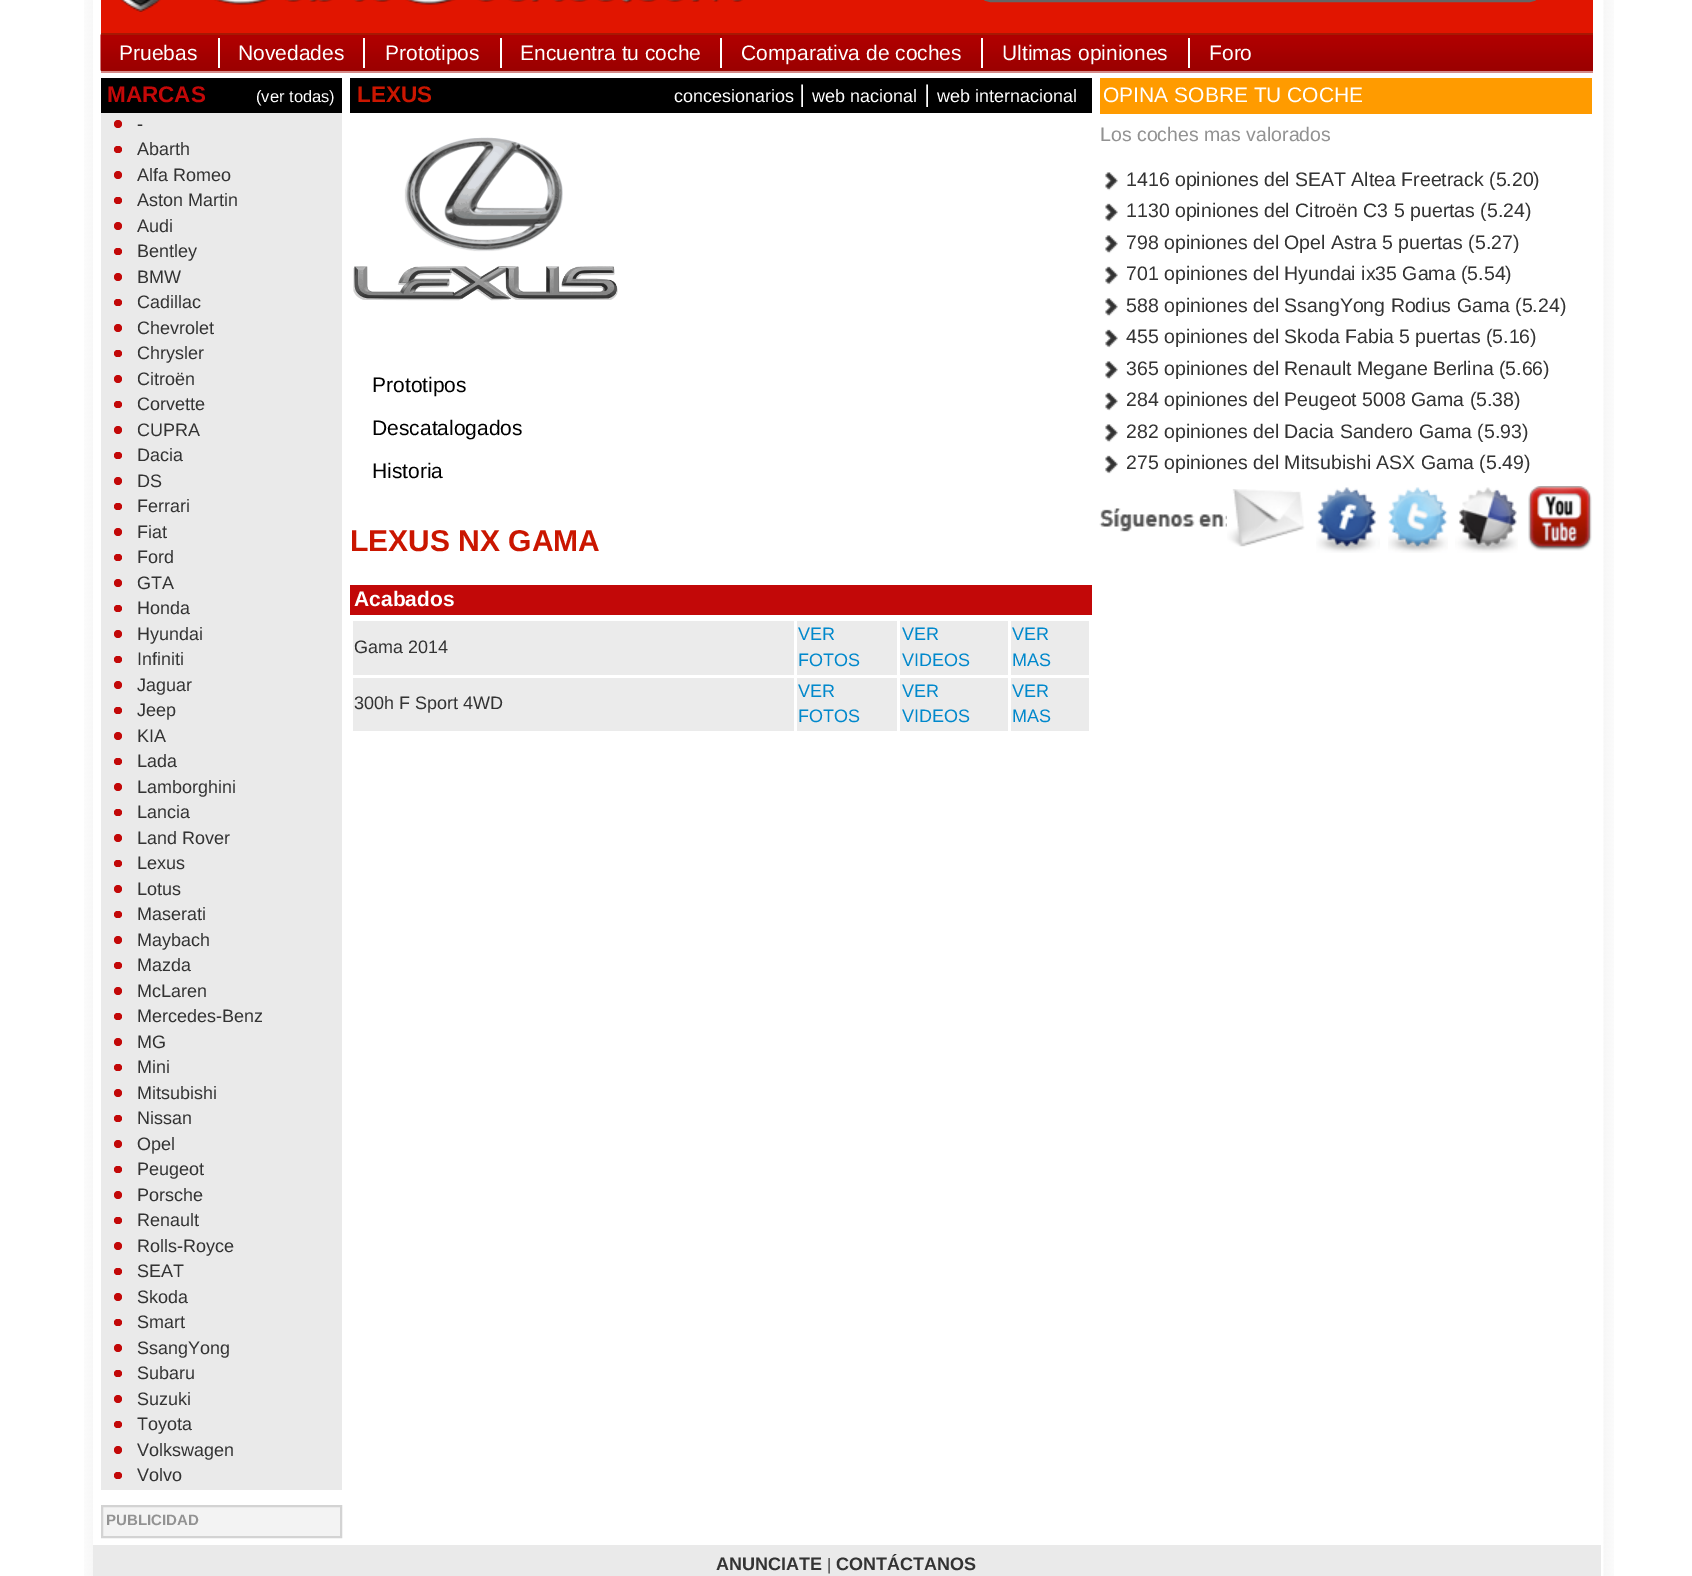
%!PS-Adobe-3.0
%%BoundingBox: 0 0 1692 1576
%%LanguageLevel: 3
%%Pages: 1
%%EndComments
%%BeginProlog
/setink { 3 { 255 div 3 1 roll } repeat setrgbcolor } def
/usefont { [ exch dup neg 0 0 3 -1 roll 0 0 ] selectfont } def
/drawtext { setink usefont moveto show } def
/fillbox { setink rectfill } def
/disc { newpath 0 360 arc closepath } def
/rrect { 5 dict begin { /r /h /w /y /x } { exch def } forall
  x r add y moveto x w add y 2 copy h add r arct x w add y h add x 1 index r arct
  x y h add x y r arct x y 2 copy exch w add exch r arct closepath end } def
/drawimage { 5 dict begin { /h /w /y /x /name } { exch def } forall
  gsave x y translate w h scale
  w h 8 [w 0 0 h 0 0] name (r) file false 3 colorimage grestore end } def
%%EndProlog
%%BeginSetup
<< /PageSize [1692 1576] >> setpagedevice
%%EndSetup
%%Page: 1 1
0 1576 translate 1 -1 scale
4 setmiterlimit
0 0 1692 1576 255 255 255 fillbox
(assets/img1.rgb) 84 0 1530 1576 drawimage
93 0 2 1545 255 255 255 fillbox
101 0 1492 33 225 21 0 fillbox
101 101 101 setink
2 setlinewidth
976 -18 568 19 15.5 rrect stroke
(assets/img2.rgb) 120 0 623 12 drawimage
101 70 1492 1 162 12 0 fillbox
(assets/img3.rgb) 100 34 1493 37 drawimage
101 33 1492 2 167 24 3 fillbox
101 71 1492 2 213 137 135 fillbox
218 38 2 30 255 255 255 fillbox
(Pruebas) 119 60 /LiberationSans-Regular 21 255 255 255 drawtext
363 38 2 30 255 255 255 fillbox
(Novedades) 238 60 /LiberationSans-Regular 21 255 255 255 drawtext
500 38 2 30 255 255 255 fillbox
(Prototipos) 385 60 /LiberationSans-Regular 21 255 255 255 drawtext
720 38 2 30 255 255 255 fillbox
(Encuentra tu coche) 520 60 /LiberationSans-Regular 21 255 255 255 drawtext
981 38 2 30 255 255 255 fillbox
(Comparativa de coches) 741 60 /LiberationSans-Regular 21 255 255 255 drawtext
1188 38 2 30 255 255 255 fillbox
(Ultimas opiniones) 1002 60 /LiberationSans-Regular 21 255 255 255 drawtext
(Foro) 1209 60 /LiberationSans-Regular 21 255 255 255 drawtext
101 113 241 1377 234 234 234 fillbox
101 78 241 35 0 0 0 fillbox
(MARCAS) 107 102 /LiberationSans-Bold 22.5 194 8 8 drawtext
(\(ver todas\)) 256 102 /LiberationSans-Regular 16.5 255 255 255 drawtext
194 8 8 setink
118 124 4 disc fill
(-) 137 130 /LiberationSans-Regular 18 51 51 51 drawtext
194 8 8 setink
114 146 8 7 3.5 rrect fill
(Abarth) 137 155 /LiberationSans-Regular 18 51 51 51 drawtext
194 8 8 setink
118 175 4 disc fill
(Alfa Romeo) 137 181 /LiberationSans-Regular 18 51 51 51 drawtext
194 8 8 setink
114 197 8 7 3.5 rrect fill
(Aston Martin) 137 206 /LiberationSans-Regular 18 51 51 51 drawtext
194 8 8 setink
118 226 4 disc fill
(Audi) 137 232 /LiberationSans-Regular 18 51 51 51 drawtext
194 8 8 setink
114 248 8 7 3.5 rrect fill
(Bentley) 137 257 /LiberationSans-Regular 18 51 51 51 drawtext
194 8 8 setink
118 277 4 disc fill
(BMW) 137 283 /LiberationSans-Regular 18 51 51 51 drawtext
194 8 8 setink
114 299 8 7 3.5 rrect fill
(Cadillac) 137 308 /LiberationSans-Regular 18 51 51 51 drawtext
194 8 8 setink
118 328 4 disc fill
(Chevrolet) 137 334 /LiberationSans-Regular 18 51 51 51 drawtext
194 8 8 setink
114 350 8 7 3.5 rrect fill
(Chrysler) 137 359 /LiberationSans-Regular 18 51 51 51 drawtext
194 8 8 setink
118 379 4 disc fill
(Citroën) 137 385 /LiberationSans-Regular 18 51 51 51 drawtext
194 8 8 setink
114 401 8 7 3.5 rrect fill
(Corvette) 137 410 /LiberationSans-Regular 18 51 51 51 drawtext
194 8 8 setink
118 430 4 disc fill
(CUPRA) 137 436 /LiberationSans-Regular 18 51 51 51 drawtext
194 8 8 setink
114 452 8 7 3.5 rrect fill
(Dacia) 137 461 /LiberationSans-Regular 18 51 51 51 drawtext
194 8 8 setink
118 481 4 disc fill
(DS) 137 487 /LiberationSans-Regular 18 51 51 51 drawtext
194 8 8 setink
114 503 8 7 3.5 rrect fill
(Ferrari) 137 512 /LiberationSans-Regular 18 51 51 51 drawtext
194 8 8 setink
118 532 4 disc fill
(Fiat) 137 538 /LiberationSans-Regular 18 51 51 51 drawtext
194 8 8 setink
114 554 8 7 3.5 rrect fill
(Ford) 137 563 /LiberationSans-Regular 18 51 51 51 drawtext
194 8 8 setink
118 583 4 disc fill
(GTA) 137 589 /LiberationSans-Regular 18 51 51 51 drawtext
194 8 8 setink
114 605 8 7 3.5 rrect fill
(Honda) 137 614 /LiberationSans-Regular 18 51 51 51 drawtext
194 8 8 setink
118 634 4 disc fill
(Hyundai) 137 640 /LiberationSans-Regular 18 51 51 51 drawtext
194 8 8 setink
114 656 8 7 3.5 rrect fill
(Infiniti) 137 665 /LiberationSans-Regular 18 51 51 51 drawtext
194 8 8 setink
118 685 4 disc fill
(Jaguar) 137 691 /LiberationSans-Regular 18 51 51 51 drawtext
194 8 8 setink
114 707 8 7 3.5 rrect fill
(Jeep) 137 716 /LiberationSans-Regular 18 51 51 51 drawtext
194 8 8 setink
118 736 4 disc fill
(KIA) 137 742 /LiberationSans-Regular 18 51 51 51 drawtext
194 8 8 setink
114 758 8 7 3.5 rrect fill
(Lada) 137 767 /LiberationSans-Regular 18 51 51 51 drawtext
194 8 8 setink
118 787 4 disc fill
(Lamborghini) 137 793 /LiberationSans-Regular 18 51 51 51 drawtext
194 8 8 setink
114 809 8 7 3.5 rrect fill
(Lancia) 137 818 /LiberationSans-Regular 18 51 51 51 drawtext
194 8 8 setink
118 838 4 disc fill
(Land Rover) 137 844 /LiberationSans-Regular 18 51 51 51 drawtext
194 8 8 setink
114 860 8 7 3.5 rrect fill
(Lexus) 137 869 /LiberationSans-Regular 18 51 51 51 drawtext
194 8 8 setink
118 889 4 disc fill
(Lotus) 137 895 /LiberationSans-Regular 18 51 51 51 drawtext
194 8 8 setink
114 911 8 7 3.5 rrect fill
(Maserati) 137 920 /LiberationSans-Regular 18 51 51 51 drawtext
194 8 8 setink
118 940 4 disc fill
(Maybach) 137 946 /LiberationSans-Regular 18 51 51 51 drawtext
194 8 8 setink
114 962 8 7 3.5 rrect fill
(Mazda) 137 971 /LiberationSans-Regular 18 51 51 51 drawtext
194 8 8 setink
118 991 4 disc fill
(McLaren) 137 997 /LiberationSans-Regular 18 51 51 51 drawtext
194 8 8 setink
114 1013 8 7 3.5 rrect fill
(Mercedes-Benz) 137 1022 /LiberationSans-Regular 18 51 51 51 drawtext
194 8 8 setink
118 1042 4 disc fill
(MG) 137 1048 /LiberationSans-Regular 18 51 51 51 drawtext
194 8 8 setink
114 1064 8 7 3.5 rrect fill
(Mini) 137 1073 /LiberationSans-Regular 18 51 51 51 drawtext
194 8 8 setink
118 1093 4 disc fill
(Mitsubishi) 137 1099 /LiberationSans-Regular 18 51 51 51 drawtext
194 8 8 setink
114 1115 8 7 3.5 rrect fill
(Nissan) 137 1124 /LiberationSans-Regular 18 51 51 51 drawtext
194 8 8 setink
118 1144 4 disc fill
(Opel) 137 1150 /LiberationSans-Regular 18 51 51 51 drawtext
194 8 8 setink
114 1166 8 7 3.5 rrect fill
(Peugeot) 137 1175 /LiberationSans-Regular 18 51 51 51 drawtext
194 8 8 setink
118 1195 4 disc fill
(Porsche) 137 1201 /LiberationSans-Regular 18 51 51 51 drawtext
194 8 8 setink
114 1217 8 7 3.5 rrect fill
(Renault) 137 1226 /LiberationSans-Regular 18 51 51 51 drawtext
194 8 8 setink
118 1246 4 disc fill
(Rolls-Royce) 137 1252 /LiberationSans-Regular 18 51 51 51 drawtext
194 8 8 setink
114 1268 8 7 3.5 rrect fill
(SEAT) 137 1277 /LiberationSans-Regular 18 51 51 51 drawtext
194 8 8 setink
118 1297 4 disc fill
(Skoda) 137 1303 /LiberationSans-Regular 18 51 51 51 drawtext
194 8 8 setink
114 1319 8 7 3.5 rrect fill
(Smart) 137 1328 /LiberationSans-Regular 18 51 51 51 drawtext
194 8 8 setink
118 1348 4 disc fill
(SsangYong) 137 1354 /LiberationSans-Regular 18 51 51 51 drawtext
194 8 8 setink
114 1370 8 7 3.5 rrect fill
(Subaru) 137 1379 /LiberationSans-Regular 18 51 51 51 drawtext
194 8 8 setink
118 1399 4 disc fill
(Suzuki) 137 1405 /LiberationSans-Regular 18 51 51 51 drawtext
194 8 8 setink
114 1421 8 7 3.5 rrect fill
(Toyota) 137 1430 /LiberationSans-Regular 18 51 51 51 drawtext
194 8 8 setink
118 1450 4 disc fill
(Volkswagen) 137 1456 /LiberationSans-Regular 18 51 51 51 drawtext
194 8 8 setink
114 1472 8 7 3.5 rrect fill
(Volvo) 137 1481 /LiberationSans-Regular 18 51 51 51 drawtext
243 243 243 setink
102 1506 moveto 341 1506 lineto 341 1537 lineto 102 1537 lineto closepath gsave fill grestore
211 211 211 setink
stroke
(PUBLICIDAD) 106 1525 /LiberationSans-Bold 15 146 146 146 drawtext
350 78 742 35 0 0 0 fillbox
(LEXUS) 357 102 /LiberationSans-Bold 22.5 202 22 0 drawtext
(concesionarios) 674 102 /LiberationSans-Regular 18 255 255 255 drawtext
(|) 799 102 /LiberationSans-Regular 24 255 255 255 drawtext
(web nacional) 812 102 /LiberationSans-Regular 18 255 255 255 drawtext
(|) 924 102 /LiberationSans-Regular 24 255 255 255 drawtext
(web internacional) 937 102 /LiberationSans-Regular 18 255 255 255 drawtext
(assets/img4.rgb) 353 137 265 164 drawimage
(Prototipos) 372 392 /LiberationSans-Regular 21 0 0 0 drawtext
(Descatalogados) 372 435 /LiberationSans-Regular 21 0 0 0 drawtext
(Historia) 372 478 /LiberationSans-Regular 21 0 0 0 drawtext
(LEXUS NX GAMA) 350 551 /LiberationSans-Bold 30 202 22 0 drawtext
350 585 742 30 194 8 8 fillbox
(Acabados) 354 606 /LiberationSans-Bold 21 255 255 255 drawtext
353 621 441 54 235 235 235 fillbox
(Gama 2014) 354 653 /LiberationSans-Regular 18 51 51 51 drawtext
797 621 100 54 235 235 235 fillbox
(VER) 798 640 /LiberationSans-Regular 18 0 136 204 drawtext
(FOTOS) 798 666 /LiberationSans-Regular 18 0 136 204 drawtext
900 621 108 54 235 235 235 fillbox
(VER) 902 640 /LiberationSans-Regular 18 0 136 204 drawtext
(VIDEOS) 902 666 /LiberationSans-Regular 18 0 136 204 drawtext
1011 621 78 54 235 235 235 fillbox
(VER) 1012 640 /LiberationSans-Regular 18 0 136 204 drawtext
(MAS) 1012 666 /LiberationSans-Regular 18 0 136 204 drawtext
353 678 441 53 235 235 235 fillbox
(300h F Sport 4WD) 354 709 /LiberationSans-Regular 18 51 51 51 drawtext
797 678 100 53 235 235 235 fillbox
(VER) 798 697 /LiberationSans-Regular 18 0 136 204 drawtext
(FOTOS) 798 722 /LiberationSans-Regular 18 0 136 204 drawtext
900 678 108 53 235 235 235 fillbox
(VER) 902 697 /LiberationSans-Regular 18 0 136 204 drawtext
(VIDEOS) 902 722 /LiberationSans-Regular 18 0 136 204 drawtext
1011 678 78 53 235 235 235 fillbox
(VER) 1012 697 /LiberationSans-Regular 18 0 136 204 drawtext
(MAS) 1012 722 /LiberationSans-Regular 18 0 136 204 drawtext
1100 78 492 36 255 155 0 fillbox
(OPINA SOBRE TU COCHE) 1103 102 /LiberationSans-Regular 21 255 255 255 drawtext
(Los coches mas valorados) 1100 141 /LiberationSans-Regular 19.5 146 146 146 drawtext
(assets/img5.rgb) 1105 172 13 19 drawimage
(1416 opiniones del SEAT Altea Freetrack \(5.20\)) 1126 186 /LiberationSans-Regular 19.5 51 51 51 drawtext
(assets/img6.rgb) 1105 203 13 19 drawimage
(1130 opiniones del Citroën C3 5 puertas \(5.24\)) 1126 217 /LiberationSans-Regular 19.5 51 51 51 drawtext
(assets/img5.rgb) 1105 235 13 19 drawimage
(798 opiniones del Opel Astra 5 puertas \(5.27\)) 1126 249 /LiberationSans-Regular 19.5 51 51 51 drawtext
(assets/img6.rgb) 1105 266 13 19 drawimage
(701 opiniones del Hyundai ix35 Gama \(5.54\)) 1126 280 /LiberationSans-Regular 19.5 51 51 51 drawtext
(assets/img5.rgb) 1105 298 13 19 drawimage
(588 opiniones del SsangYong Rodius Gama \(5.24\)) 1126 312 /LiberationSans-Regular 19.5 51 51 51 drawtext
(assets/img6.rgb) 1105 329 13 19 drawimage
(455 opiniones del Skoda Fabia 5 puertas \(5.16\)) 1126 343 /LiberationSans-Regular 19.5 51 51 51 drawtext
(assets/img5.rgb) 1105 361 13 19 drawimage
(365 opiniones del Renault Megane Berlina \(5.66\)) 1126 375 /LiberationSans-Regular 19.5 51 51 51 drawtext
(assets/img6.rgb) 1105 392 13 19 drawimage
(284 opiniones del Peugeot 5008 Gama \(5.38\)) 1126 406 /LiberationSans-Regular 19.5 51 51 51 drawtext
(assets/img5.rgb) 1105 424 13 19 drawimage
(282 opiniones del Dacia Sandero Gama \(5.93\)) 1126 438 /LiberationSans-Regular 19.5 51 51 51 drawtext
(assets/img6.rgb) 1105 455 13 19 drawimage
(275 opiniones del Mitsubishi ASX Gama \(5.49\)) 1126 469 /LiberationSans-Regular 19.5 51 51 51 drawtext
(assets/img7.rgb) 1099 508 128 24 drawimage
(assets/img8.rgb) 1227 489 78 58 drawimage
(assets/img9.rgb) 1316 487 64 66 drawimage
(assets/img10.rgb) 1388 487 60 66 drawimage
(assets/img11.rgb) 1455 487 63 66 drawimage
(assets/img12.rgb) 1528 486 64 65 drawimage
93 1545 1508 31 234 234 234 fillbox
(ANUNCIATE) 716 1570 /LiberationSans-Bold 18 51 51 51 drawtext
(|) 827 1570 /LiberationSans-Regular 16.5 51 51 51 drawtext
(CONTÁCTANOS) 836 1570 /LiberationSans-Bold 18 51 51 51 drawtext
showpage
%%EOF
